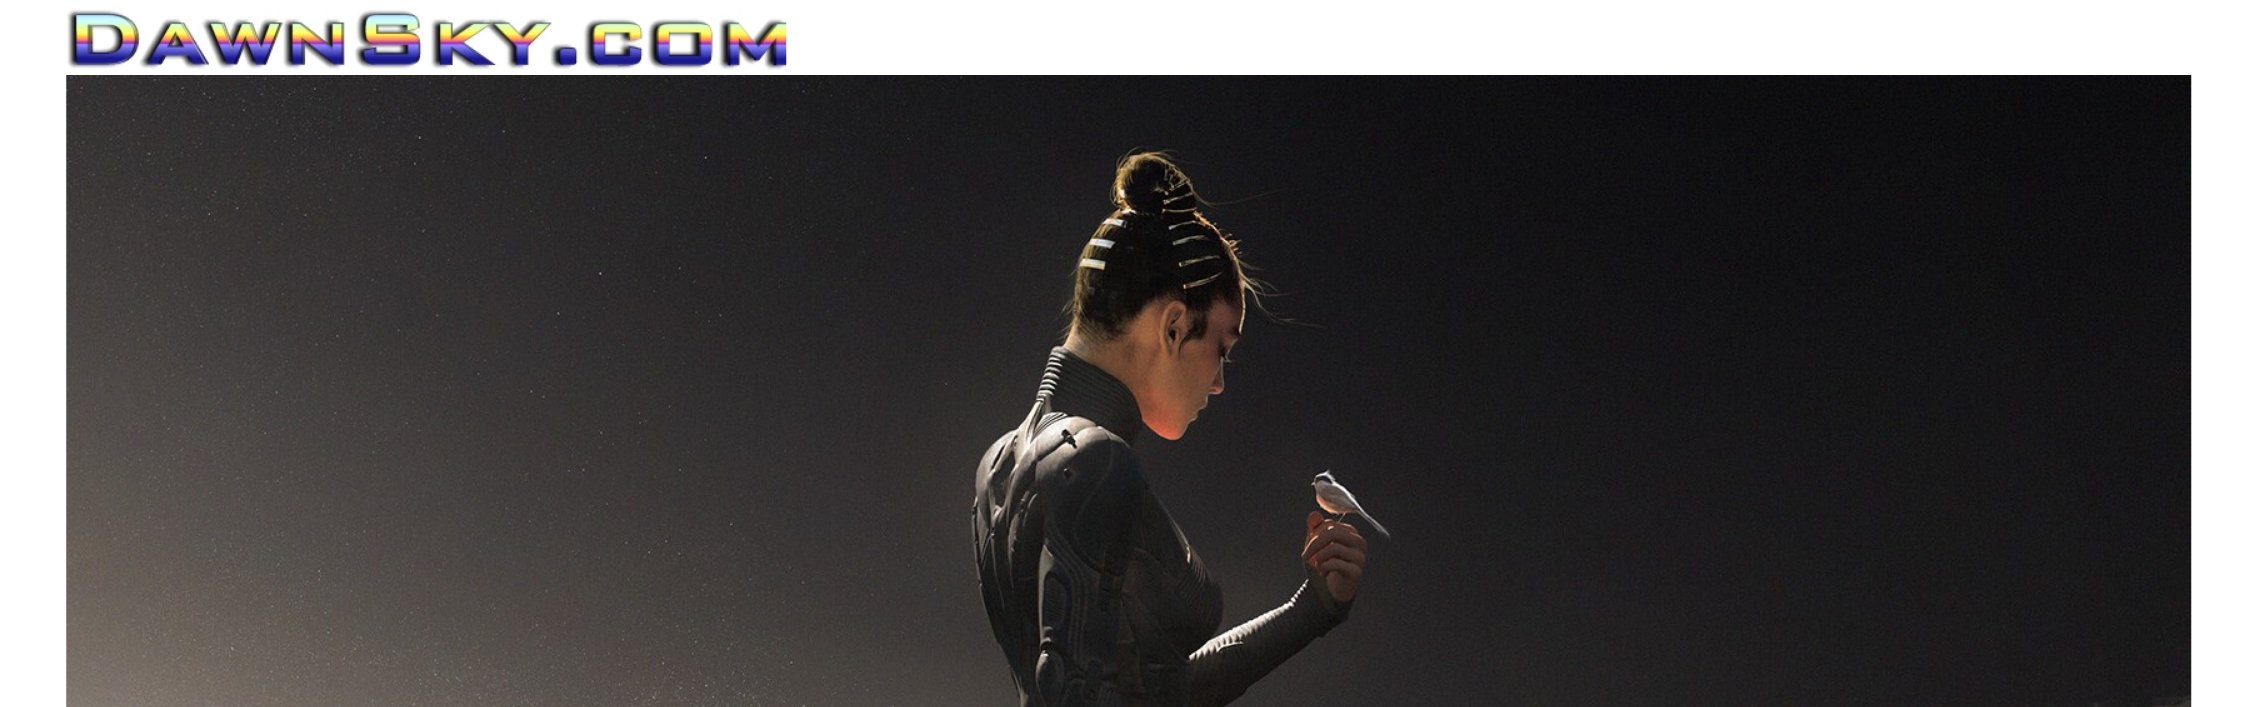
%!PS-Adobe-3.0
%%BoundingBox: 0 0 2267 707
%%LanguageLevel: 3
%%Pages: 1
%%EndComments
%%BeginProlog
/setink { dup -16 bitshift 255 div exch dup -8 bitshift 255 and 255 div exch 255 and 255 div setrgbcolor } def
/drawimage { 5 dict begin { /h /w /y /x /name } { exch def } forall
  gsave x y translate w h scale
  w h 8 [w 0 0 h 0 0] name (r) file false 3 colorimage grestore end } def
%%EndProlog
%%BeginSetup
<< /PageSize [2267 707] >> setpagedevice
%%EndSetup
%%Page: 1 1
0 707 translate 1 -1 scale
4 setmiterlimit
16#FFFFFF setink
0 0 2267 707 rectfill
(img1.raw) 67 10 720 60 drawimage
(img2.raw) 66 75 2126 632 drawimage
showpage
%%EOF
